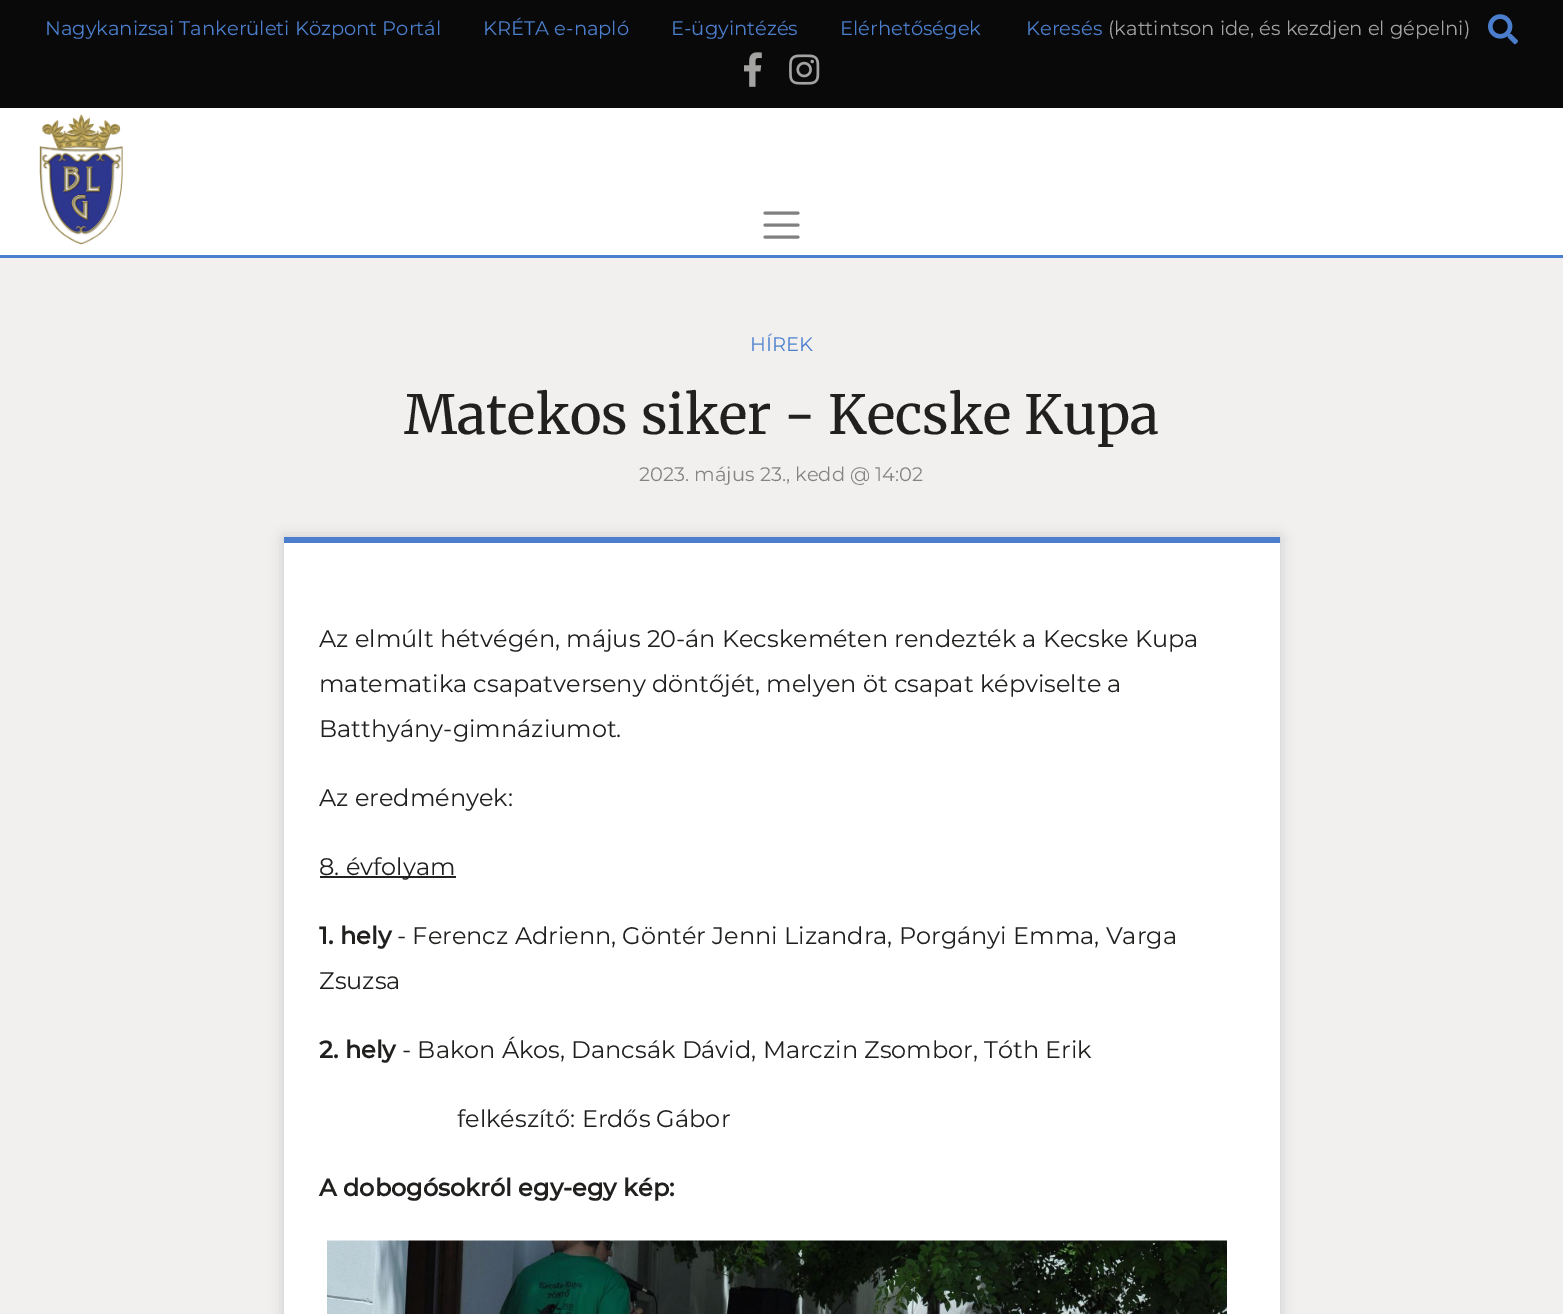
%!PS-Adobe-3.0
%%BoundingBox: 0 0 1563 1314
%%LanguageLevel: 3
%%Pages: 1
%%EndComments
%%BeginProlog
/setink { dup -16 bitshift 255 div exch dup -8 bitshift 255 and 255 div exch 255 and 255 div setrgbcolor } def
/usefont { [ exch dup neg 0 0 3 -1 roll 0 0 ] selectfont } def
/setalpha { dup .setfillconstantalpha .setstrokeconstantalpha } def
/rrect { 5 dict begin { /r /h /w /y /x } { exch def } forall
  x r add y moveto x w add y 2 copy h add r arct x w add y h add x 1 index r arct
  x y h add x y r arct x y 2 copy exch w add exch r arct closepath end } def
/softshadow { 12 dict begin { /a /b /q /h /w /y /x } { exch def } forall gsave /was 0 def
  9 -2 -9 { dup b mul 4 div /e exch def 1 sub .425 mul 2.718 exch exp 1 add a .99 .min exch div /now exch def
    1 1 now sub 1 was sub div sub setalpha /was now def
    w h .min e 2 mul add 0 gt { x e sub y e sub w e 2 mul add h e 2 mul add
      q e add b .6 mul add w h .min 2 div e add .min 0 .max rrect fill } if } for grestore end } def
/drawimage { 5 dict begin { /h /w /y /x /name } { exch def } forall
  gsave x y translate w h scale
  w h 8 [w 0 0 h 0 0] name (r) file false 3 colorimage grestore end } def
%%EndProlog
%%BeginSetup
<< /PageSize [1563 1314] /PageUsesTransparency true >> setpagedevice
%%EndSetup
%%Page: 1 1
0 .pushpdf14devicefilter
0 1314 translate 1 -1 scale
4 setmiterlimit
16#F1F0EF setink
0 0 1563 1314 rectfill
16#090909 setink
0 0 1563 108 rectfill
/Montserrat-Regular 19.5 usefont
16#4B7FCE setink
[
    [(Nagykanizsai Tankerületi Központ Portál) 45 35]
    [(KRÉTA e-napló) 483 35]
    [(E-ügyintézés) 671 35]
    [(Elérhetőségek) 840 35]
    [(Keresés) 1026 35]
] { aload pop moveto show } forall
16#A4A3A2 setink
1108 35 moveto (\(kattintson ide, és kezdjen el gépelni\)) show
(img1.raw) 1488 14 30 31 drawimage
(img2.raw) 744 52 18 35 drawimage
(img3.raw) 789 54 31 31 drawimage
16#FFFFFF setink
0 108 1563 147 rectfill
16#4B7FCE setink
0 255 1563 3 rectfill
(img4.raw) 39 114 84 131 drawimage
16#808080 setink
3 setlinewidth
1 setlinecap
765 213 moveto 798 213 lineto 765 225 moveto 798 225 lineto 765 237 moveto 798 237 lineto stroke
16#4B7FCE setink
750 351 moveto (HÍREK) show
/Merriweather-Regular 54 usefont
16#21201F setink
404 434 moveto (Matekos siker - Kecske Kupa) show
/Montserrat-Regular 19.5 usefont
16#848382 setink
639 481 moveto (2023. május 23., kedd @ 14:02) show
16#000000 setink
284 537 996 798 0 7 0.15 softshadow
16#FFFFFF setink
284 543 996 771 rectfill
16#4B7FCE setink
284 537 996 6 rectfill
/Montserrat-Regular 24 usefont
16#21201F setink
[
    [(Az elmúlt hétvégén, május 20-án Kecskeméten rendezték a Kecske Kupa) 319 647]
    [(matematika csapatverseny döntőjét, melyen öt csapat képviselte a) 319 692]
    [(Batthyány-gimnáziumot.) 319 737]
    [(Az eredmények:) 319 806]
] { aload pop moveto show } forall
16#212223 setink
320 876 136 2 rectfill
16#21201F setink
319 875 moveto (8. évfolyam) show
/Montserrat-Bold 24 usefont
319 944 moveto (1. hely) show
/Montserrat-Regular 24 usefont
397 944 moveto (- Ferencz Adrienn, Göntér Jenni Lizandra, Porgányi Emma, Varga) show
319 989 moveto (Zsuzsa) show
/Montserrat-Bold 24 usefont
319 1058 moveto (2. hely) show
/Montserrat-Regular 24 usefont
402 1058 moveto (- Bakon Ákos, Dancsák Dávid, Marczin Zsombor, Tóth Erik) show
457 1127 moveto (felkészítő: Erdős Gábor) show
/Montserrat-Bold 24 usefont
319 1196 moveto (A dobogósokról egy-egy kép:) show
(img5.raw) 327 1240 900 74 drawimage
.poppdf14devicefilter showpage
%%EOF
